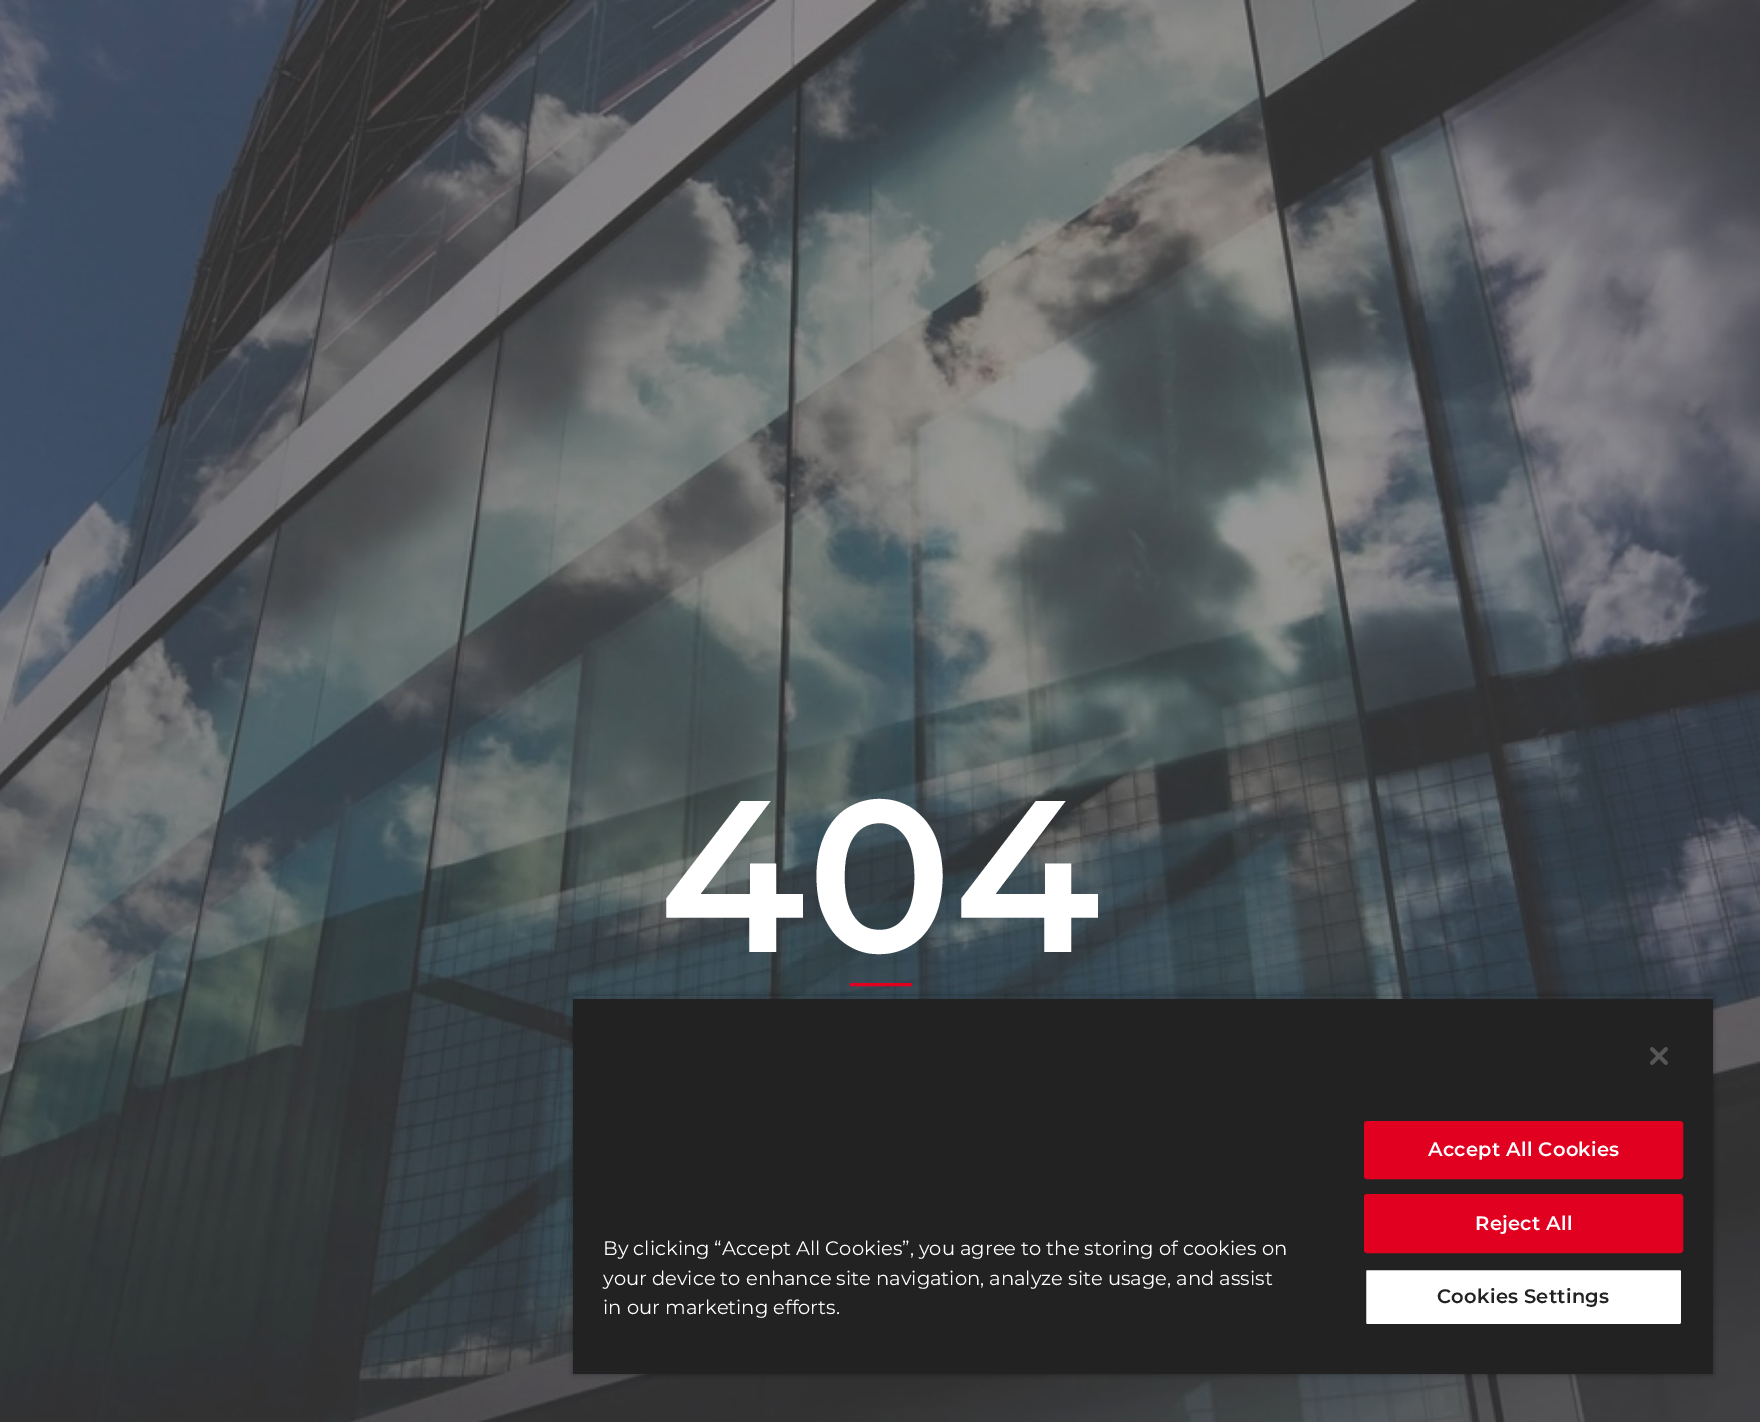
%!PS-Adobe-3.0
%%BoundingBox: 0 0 1760 1422
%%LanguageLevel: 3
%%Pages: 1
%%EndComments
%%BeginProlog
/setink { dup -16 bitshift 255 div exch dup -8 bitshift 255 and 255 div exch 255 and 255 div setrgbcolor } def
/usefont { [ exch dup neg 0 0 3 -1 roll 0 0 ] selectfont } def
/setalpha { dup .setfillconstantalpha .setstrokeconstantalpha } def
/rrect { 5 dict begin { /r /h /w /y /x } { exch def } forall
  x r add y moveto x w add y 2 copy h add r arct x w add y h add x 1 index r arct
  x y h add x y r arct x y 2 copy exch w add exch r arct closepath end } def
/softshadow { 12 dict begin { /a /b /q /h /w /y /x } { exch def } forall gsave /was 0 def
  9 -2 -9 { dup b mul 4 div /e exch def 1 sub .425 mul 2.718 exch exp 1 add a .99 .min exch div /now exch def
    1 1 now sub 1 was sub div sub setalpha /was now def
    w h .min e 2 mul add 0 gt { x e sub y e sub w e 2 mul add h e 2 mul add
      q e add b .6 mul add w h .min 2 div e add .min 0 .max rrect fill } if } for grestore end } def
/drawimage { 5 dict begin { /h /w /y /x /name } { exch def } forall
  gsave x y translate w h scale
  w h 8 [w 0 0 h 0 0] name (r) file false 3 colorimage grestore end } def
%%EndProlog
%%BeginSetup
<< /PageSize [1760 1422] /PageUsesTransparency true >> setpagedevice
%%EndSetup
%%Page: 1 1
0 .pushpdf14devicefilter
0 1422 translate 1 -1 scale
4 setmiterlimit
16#FFFFFF setink
0 0 1760 1422 rectfill
(img1.raw) 0 0 1760 1422 drawimage
/Montserrat-SemiBold 216 usefont
659 952 moveto 1.5 0 (404) ashow
/DejaVuSansMono-Regular 36 usefont
16#E20020 setink
850 997 moveto -1.5 0 (───) ashow
gsave
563 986 moveto 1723 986 lineto 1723 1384 lineto 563 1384 lineto closepath 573 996 moveto 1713 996 lineto 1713 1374 lineto 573 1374 lineto closepath eoclip newpath
16#000000 setink
573 996 1140 378 0 3 0.35 softshadow
grestore
gsave
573 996 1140 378 rectclip
16#000000 setink
573 999 1140 375 0 3 0.2 softshadow
grestore
16#222222 setink
573 999 1140 375 rectfill
(img2.raw) 1650 1047 18 18 drawimage
/Montserrat-Regular 19.5 usefont
16#FFFFFF setink
[
    [(By clicking “Accept All Cookies”, you agree to the storing of cookies on) 603 1255]
    [(your device to enhance site navigation, analyze site usage, and assist) 603 1285]
    [(in our marketing efforts.) 603 1314]
] { aload pop moveto show } forall
16#E20020 setink
1365 1122 317 56 2 rrect gsave fill grestore
2 setlinewidth
stroke
/Montserrat-SemiBold 19.5 usefont
16#FFFFFF setink
1428 1156 moveto 0.25 0 (Accept All Cookies) ashow
16#E20020 setink
1365 1195 317 57 2 rrect gsave fill grestore
stroke
16#FFFFFF setink
1475 1230 moveto 0.25 0 (Reject All) ashow
1365 1269 317 56 2 rrect gsave fill grestore
16#222222 setink
stroke
1437 1303 moveto 0.25 0 (Cookies Settings) ashow
.poppdf14devicefilter showpage
%%EOF
